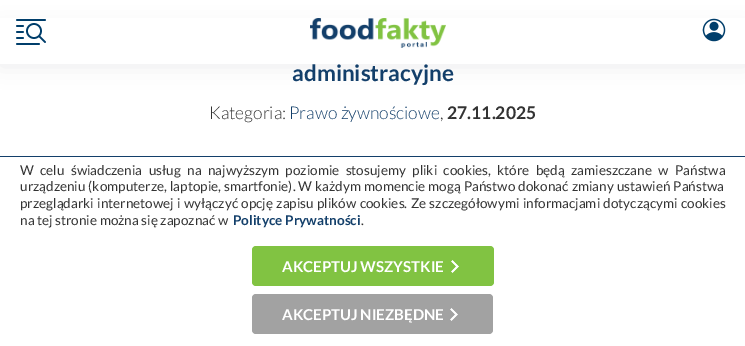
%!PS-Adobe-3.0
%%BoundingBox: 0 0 745 346
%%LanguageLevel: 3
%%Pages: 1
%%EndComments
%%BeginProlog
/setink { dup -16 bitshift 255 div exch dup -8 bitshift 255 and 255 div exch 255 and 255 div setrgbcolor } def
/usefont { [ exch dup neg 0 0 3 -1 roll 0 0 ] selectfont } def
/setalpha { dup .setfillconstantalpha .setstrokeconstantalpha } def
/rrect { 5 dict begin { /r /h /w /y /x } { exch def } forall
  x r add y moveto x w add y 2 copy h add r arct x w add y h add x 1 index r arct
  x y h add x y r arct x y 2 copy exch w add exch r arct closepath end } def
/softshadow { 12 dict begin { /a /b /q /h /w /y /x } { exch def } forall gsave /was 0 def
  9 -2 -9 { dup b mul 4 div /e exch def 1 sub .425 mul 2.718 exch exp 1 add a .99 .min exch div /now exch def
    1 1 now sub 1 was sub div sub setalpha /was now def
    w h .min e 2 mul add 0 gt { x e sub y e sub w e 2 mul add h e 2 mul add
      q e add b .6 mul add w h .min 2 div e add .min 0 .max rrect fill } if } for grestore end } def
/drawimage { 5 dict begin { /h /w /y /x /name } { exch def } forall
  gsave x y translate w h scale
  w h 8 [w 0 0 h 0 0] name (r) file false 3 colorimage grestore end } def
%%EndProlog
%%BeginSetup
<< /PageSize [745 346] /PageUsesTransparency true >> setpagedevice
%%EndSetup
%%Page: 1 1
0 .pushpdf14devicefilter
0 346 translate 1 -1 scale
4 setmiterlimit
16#FFFFFF setink
0 0 745 346 rectfill
16#42445A setink
0 29 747 37 0 10.5 0.1 softshadow
16#FFFFFF setink
0 18 745 46 rectfill
(img1.raw) 16 19 30 26 drawimage
(img2.raw) 310 18 136 30 drawimage
(img3.raw) 702 18 24 24 drawimage
/Lato-Bold 22.5 usefont
16#133F6A setink
292 81 moveto (administracyjne) show
/Lato-Light 17.5 usefont
16#333333 setink
209 119 moveto (Kategoria:) show
16#133F6A setink
289 119 moveto (Prawo żywnościowe) show
16#333333 setink
440 119 moveto (,) show
/Lato-Bold 17.5 usefont
447 119 moveto (27.11.2025) show
16#133F6A setink
0 156 745 1 rectfill
/Lato-Regular 13.5 usefont
16#333333 setink
20 175 moveto 3.75 0 32 (W celu świadczenia usług na najwyższym poziomie stosujemy pliki cookies, które będą zamieszczane w Państwa) widthshow
20 191 moveto 0.5 0 32 (urządzeniu \(komputerze, laptopie, smartfonie\). W każdym momencie mogą Państwo dokonać zmiany ustawień Państwa) widthshow
20 208 moveto 0.75 0 32 (przeglądarki internetowej i wyłączyć opcję zapisu plików cookies. Ze szczegółowymi informacjami dotyczącymi cookies) widthshow
20 225 moveto (na tej stronie można się zapoznać w) show
/Lato-Bold 13.5 usefont
16#133F6A setink
233 225 moveto (Polityce Prywatności) show
/Lato-Regular 13.5 usefont
16#333333 setink
361 225 moveto (.) show
16#81C342 setink
252 246 242 40 4 rrect fill
(img4.raw) 451 260 8 13 drawimage
/Lato-Bold 15 usefont
16#FFFFFF setink
282 272 moveto (AKCEPTUJ WSZYSTKIE) show
16#A2A2A2 setink
252 294 241 40 4 rrect fill
(img5.raw) 450 308 8 13 drawimage
16#FFFFFF setink
282 320 moveto (AKCEPTUJ NIEZBĘDNE) show
.poppdf14devicefilter showpage
%%EOF
